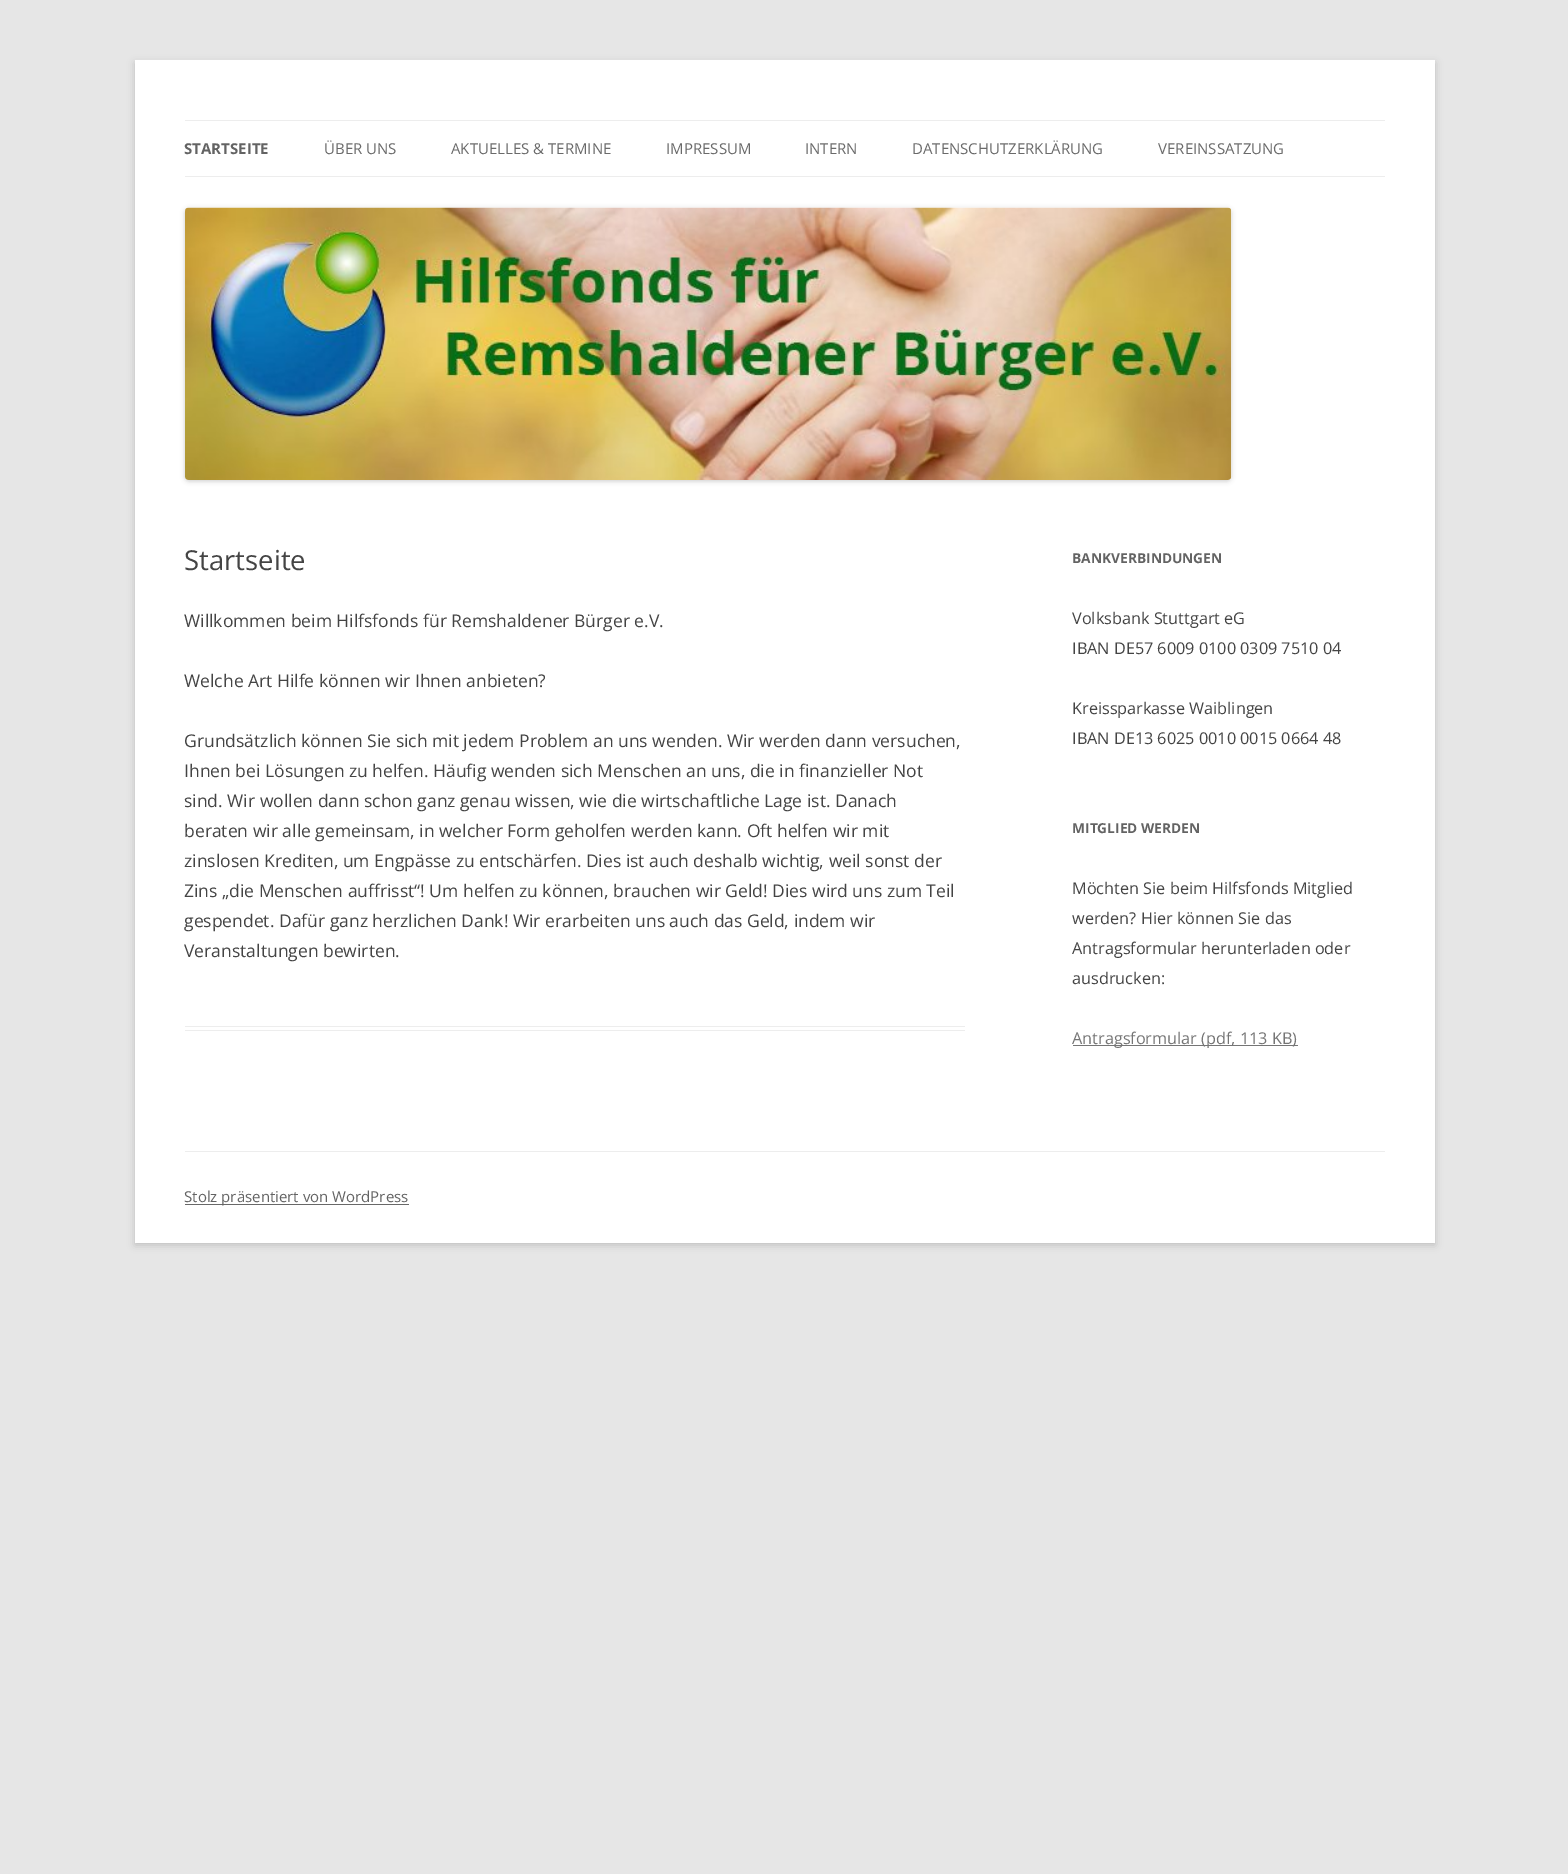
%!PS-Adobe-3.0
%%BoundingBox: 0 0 1568 1874
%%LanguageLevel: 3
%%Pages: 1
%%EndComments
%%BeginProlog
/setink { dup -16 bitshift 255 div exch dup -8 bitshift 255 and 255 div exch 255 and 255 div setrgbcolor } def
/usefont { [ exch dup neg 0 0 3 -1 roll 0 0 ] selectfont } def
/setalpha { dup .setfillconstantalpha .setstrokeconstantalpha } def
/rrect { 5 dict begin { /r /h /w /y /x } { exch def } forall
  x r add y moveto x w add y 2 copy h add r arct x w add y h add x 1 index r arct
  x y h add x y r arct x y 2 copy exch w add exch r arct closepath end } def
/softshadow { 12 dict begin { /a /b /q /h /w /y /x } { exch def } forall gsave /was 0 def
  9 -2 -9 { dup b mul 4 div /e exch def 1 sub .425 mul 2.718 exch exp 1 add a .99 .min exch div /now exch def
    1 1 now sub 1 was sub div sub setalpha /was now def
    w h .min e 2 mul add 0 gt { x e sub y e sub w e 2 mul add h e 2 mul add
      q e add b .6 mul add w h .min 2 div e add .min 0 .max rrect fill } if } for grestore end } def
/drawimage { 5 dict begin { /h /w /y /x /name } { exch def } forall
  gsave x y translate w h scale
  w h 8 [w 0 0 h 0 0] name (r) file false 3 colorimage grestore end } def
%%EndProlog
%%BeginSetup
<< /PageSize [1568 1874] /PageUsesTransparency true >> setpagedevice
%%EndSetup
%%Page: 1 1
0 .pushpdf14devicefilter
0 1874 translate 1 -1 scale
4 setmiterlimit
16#E6E6E6 setink
0 0 1568 1874 rectfill
16#646464 setink
135 63 1300 1182 0 4 0.3 softshadow
[
    [135 60 1300 1183 16#FFFFFF]
    [185 120 1200 1 16#EDEDED]
    [185 176 1200 1 16#EDEDED]
] { aload pop setink rectfill } forall
/OpenSans-Bold 15 usefont
16#636363 setink
184 154 moveto (STARTSEITE) show
/OpenSans-Regular 15 usefont
16#6A6A6A setink
[
    [(ÜBER UNS) 324 154]
    [(AKTUELLES & TERMINE) 451 154]
    [(IMPRESSUM) 666 154]
    [(INTERN) 805 154]
    [(DATENSCHUTZERKLÄRUNG) 912 154]
    [(VEREINSSATZUNG) 1158 154]
] { aload pop moveto show } forall
16#000000 setink
185 209 1046 272 4 2.5 0.2 softshadow
(img1.raw) 185 207 1047 273 drawimage
16#EDEDED setink
185 1026 780 1 rectfill
185 1030 780 1 rectfill
/OpenSans-Regular 27.5 usefont
16#444444 setink
184 570 moveto (Startseite) show
/OpenSans-Regular 17.5 usefont
[
    [(Willkommen beim Hilfsfonds für Remshaldener Bürger e.V.) 184 627]
    [(Welche Art Hilfe können wir Ihnen anbieten?) 184 687]
    [(Grundsätzlich können Sie sich mit jedem Problem an uns wenden. Wir werden dann versuchen,) 184 747]
    [(Ihnen bei Lösungen zu helfen. Häufig wenden sich Menschen an uns, die in finanzieller Not) 184 777]
    [(sind. Wir wollen dann schon ganz genau wissen, wie die wirtschaftliche Lage ist. Danach) 184 807]
    [(beraten wir alle gemeinsam, in welcher Form geholfen werden kann. Oft helfen wir mit) 184 837]
    [(zinslosen Krediten, um Engpässe zu entschärfen. Dies ist auch deshalb wichtig, weil sonst der) 184 867]
    [(Zins „die Menschen auffrisst“! Um helfen zu können, brauchen wir Geld! Dies wird uns zum Teil) 184 897]
    [(gespendet. Dafür ganz herzlichen Dank! Wir erarbeiten uns auch das Geld, indem wir) 184 927]
    [(Veranstaltungen bewirten.) 184 957]
] { aload pop moveto show } forall
/OpenSans-Bold 13.75 usefont
16#636363 setink
1072 563 moveto (BANKVERBINDUNGEN) show
/OpenSans-Regular 16.25 usefont
16#444444 setink
[
    [(Volksbank Stuttgart eG) 1072 624]
    [(IBAN DE57 6009 0100 0309 7510 04) 1072 654]
    [(Kreissparkasse Waiblingen) 1072 714]
    [(IBAN DE13 6025 0010 0015 0664 48) 1072 744]
] { aload pop moveto show } forall
/OpenSans-Bold 13.75 usefont
16#636363 setink
1072 833 moveto (MITGLIED WERDEN) show
/OpenSans-Regular 16.25 usefont
16#444444 setink
[
    [(Möchten Sie beim Hilfsfonds Mitglied) 1072 894]
    [(werden? Hier können Sie das) 1072 924]
    [(Antragsformular herunterladen oder) 1072 954]
    [(ausdrucken:) 1072 984]
] { aload pop moveto show } forall
16#757575 setink
1073 1045 225 1 rectfill
1072 1044 moveto (Antragsformular \(pdf, 113 KB\)) show
16#EDEDED setink
185 1151 1200 1 rectfill
16#686868 setink
185 1204 224 1 rectfill
/OpenSans-Regular 15 usefont
16#636363 setink
184 1202 moveto (Stolz präsentiert von WordPress) show
.poppdf14devicefilter showpage
%%EOF
